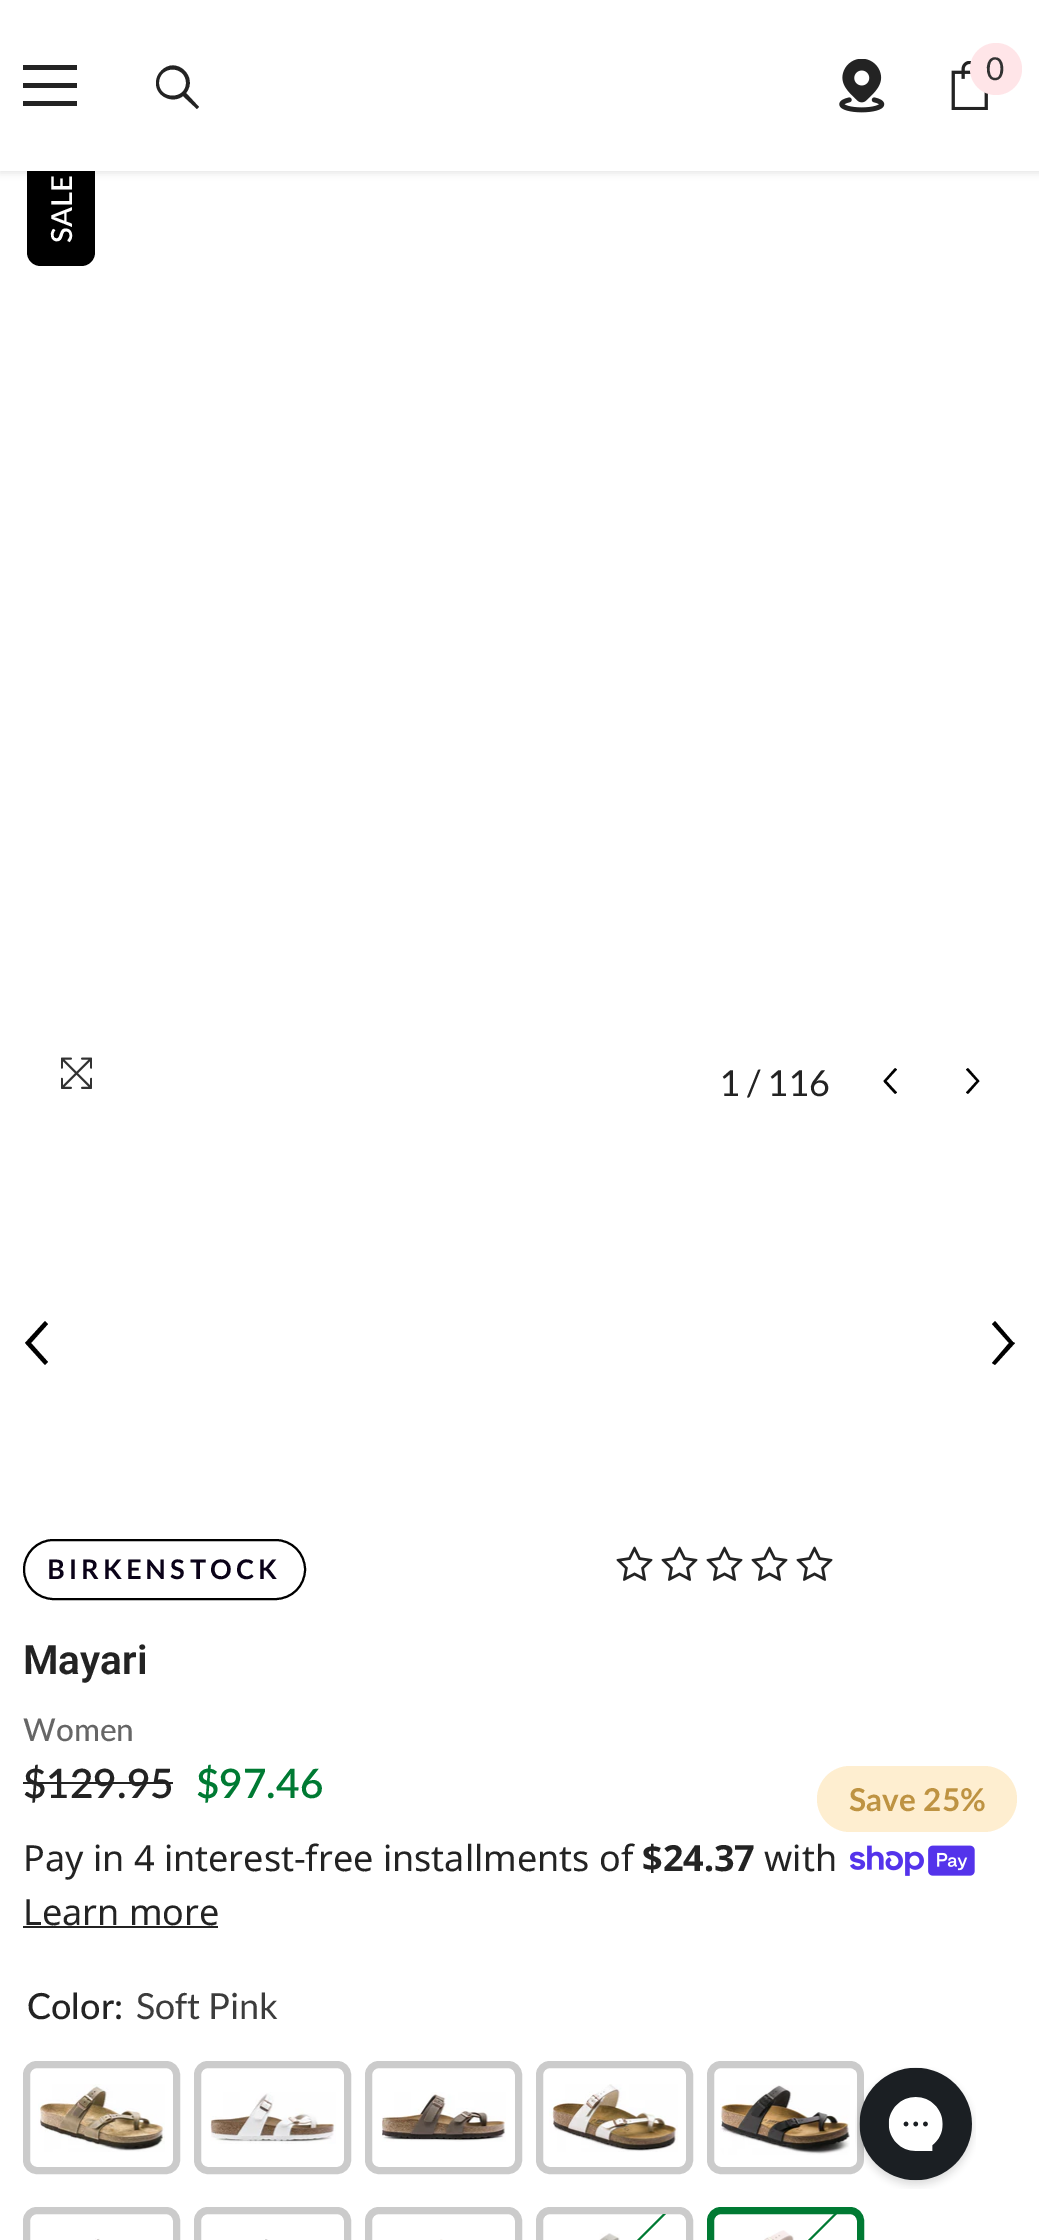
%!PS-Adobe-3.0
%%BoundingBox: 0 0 1039 2240
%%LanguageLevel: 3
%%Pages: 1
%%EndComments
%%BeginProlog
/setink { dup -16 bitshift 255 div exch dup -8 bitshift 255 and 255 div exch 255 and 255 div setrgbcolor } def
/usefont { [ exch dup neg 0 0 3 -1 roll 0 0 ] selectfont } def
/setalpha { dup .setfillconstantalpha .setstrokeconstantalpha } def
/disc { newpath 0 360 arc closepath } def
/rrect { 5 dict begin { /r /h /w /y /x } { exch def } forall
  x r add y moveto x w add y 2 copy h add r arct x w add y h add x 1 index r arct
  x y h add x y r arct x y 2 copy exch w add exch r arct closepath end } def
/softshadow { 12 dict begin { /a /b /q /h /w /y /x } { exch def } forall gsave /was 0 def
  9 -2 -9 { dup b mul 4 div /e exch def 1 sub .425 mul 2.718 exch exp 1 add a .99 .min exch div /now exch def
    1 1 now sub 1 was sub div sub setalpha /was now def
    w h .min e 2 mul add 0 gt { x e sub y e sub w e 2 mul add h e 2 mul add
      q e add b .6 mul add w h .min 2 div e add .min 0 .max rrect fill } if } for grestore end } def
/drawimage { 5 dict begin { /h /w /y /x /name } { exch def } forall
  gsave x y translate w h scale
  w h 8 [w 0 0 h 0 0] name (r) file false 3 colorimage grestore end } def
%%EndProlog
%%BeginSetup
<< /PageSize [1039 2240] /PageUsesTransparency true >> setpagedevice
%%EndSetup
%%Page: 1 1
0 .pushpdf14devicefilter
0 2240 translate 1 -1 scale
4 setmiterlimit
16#FFFFFF setink
0 0 1039 2240 rectfill
16#000000 setink
27 252 moveto 27 166 lineto 27 159 33 153 41 153 curveto 81 153 lineto 89 153 95 159 95 166 curveto 95 252 lineto 95 260 89 266 81 266 curveto 41 266 lineto 33 266 27 260 27 252 curveto closepath fill
0 2 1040 171 0 3.5 0.1 softshadow
[
    [0 0 1039 171 16#FFFFFF]
    [23 83 54 5 16#232323]
    [23 65 54 5 16#232323]
    [23 101 54 5 16#232323]
] { aload pop setink rectfill } forall
156 83 moveto 156 97 173 104 183 96 curveto 197 109 lineto 199 107 lineto 186 93 lineto 199 77 176 55 161 71 curveto 158 74 156 78 156 83 curveto closepath 159 83 moveto 159 65 186 65 186 83 curveto 186 100 159 100 159 83 curveto closepath fill
(img1.raw) 839 59 46 54 drawimage
(img2.raw) 951 61 37 49 drawimage
16#FFE5E8 setink
996 69 26 disc fill
/Lato-Regular 31.5 usefont
16#323232 setink
986 80 moveto (0) show
/Lato-SemiBold 29 usefont
16#FFFFFF setink
gsave 72 243 translate -90 rotate 0 0 moveto (SALE) show grestore
(img3.raw) 61 1057 31 32 drawimage
/Lato-Regular 36 usefont
16#232323 setink
719 1096 moveto (1 / 116) show
16#000000 setink
895 1094 moveto 897 1092.5 lineto 886.5 1081 lineto 897 1069.5 lineto 895 1068 lineto 883.5 1081 lineto 884 1082 lineto closepath fill
968 1068 moveto 966 1069.5 lineto 976.5 1081 lineto 966 1092.5 lineto 968 1094 lineto 979.5 1081 lineto 979 1080.5 lineto closepath fill
45 1365 moveto 48 1362 lineto 31 1343 lineto 48 1324 lineto 45 1321 lineto 25 1343 lineto 26 1344 lineto closepath fill
995 1321 moveto 992 1324 lineto 1009 1343 lineto 992 1363 lineto 995 1365 lineto 1015 1343 lineto 1013 1342 lineto closepath fill
2 setlinewidth
24 1540 281 59 29.5 rrect stroke
/Lato-Bold 27 usefont
16#0A0218 setink
47 1579 moveto 4.25 0 (BIRKENSTOCK) ashow
(img4.raw) 616 1546 37 35 drawimage
(img4.raw) 661 1546 37 35 drawimage
(img4.raw) 706 1546 37 35 drawimage
(img4.raw) 751 1546 37 35 drawimage
(img4.raw) 796 1546 37 35 drawimage
/Roboto-SemiBold 40.5 usefont
16#232323 setink
23 1674 moveto (Mayari) show
/Lato-Medium 31.5 usefont
16#666666 setink
23 1741 moveto (Women) show
/Lato-SemiBold 40.5 usefont
16#232323 setink
23 1798 moveto ($129.95) show
23 1782 150 2 rectfill
16#007A33 setink
196 1798 moveto ($97.46) show
16#FEEED0 setink
817 1766 200 66 33 rrect fill
/Lato-Bold 31.5 usefont
16#BE9342 setink
849 1811 moveto (Save 25%) show
/NotoSans-Regular 36 usefont
16#232323 setink
23 1871 moveto (Pay in 4 interest-free installments of) show
/NotoSans-Bold 36 usefont
642 1871 moveto ($24.37) show
/NotoSans-Regular 36 usefont
764 1871 moveto (with) show
(img5.raw) 850 1845 125 31 drawimage
23 1925 moveto (Learn more) show
23 1926 195 2 rectfill
/Lato-Medium 36 usefont
27 2019 moveto (Color:) show
/Lato-Regular 36 usefont
16#3C3C3C setink
136 2019 moveto (Soft Pink) show
16#CBCBCB setink
7 setlinewidth
26.5 2064.5 150 106 10.5 rrect stroke
(img6.raw) 38 2084 127 68 drawimage
197.5 2064.5 150 106 10.5 rrect stroke
(img7.raw) 210 2092 126 52 drawimage
368.5 2064.5 150 106 10.5 rrect stroke
(img8.raw) 382 2092 124 50 drawimage
539.5 2064.5 150 106 10.5 rrect stroke
(img9.raw) 549 2084 129 68 drawimage
710.5 2064.5 150 106 10.5 rrect stroke
(img10.raw) 720 2085 130 70 drawimage
26.5 2210.5 150 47 10.5 rrect stroke
(img11.raw) 95 2238 5 2 drawimage
197.5 2210.5 150 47 10.5 rrect stroke
(img12.raw) 265 2239 3 1 drawimage
368.5 2210.5 150 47 10.5 rrect stroke
(img13.raw) 440 2239 3 1 drawimage
539.5 2210.5 150 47 10.5 rrect stroke
(img14.raw) 599 2233 21 7 drawimage
16#007A33 setink
666 2214 moveto 567 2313 lineto 564 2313 lineto 663 2214 lineto closepath fill
710.5 2210.5 150 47 10.5 rrect stroke
(img15.raw) 764 2230 30 10 drawimage
837 2214 moveto 738 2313 lineto 735 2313 lineto 834 2214 lineto closepath fill
(img16.raw) 855 2067 121 122 drawimage
.poppdf14devicefilter showpage
%%EOF
